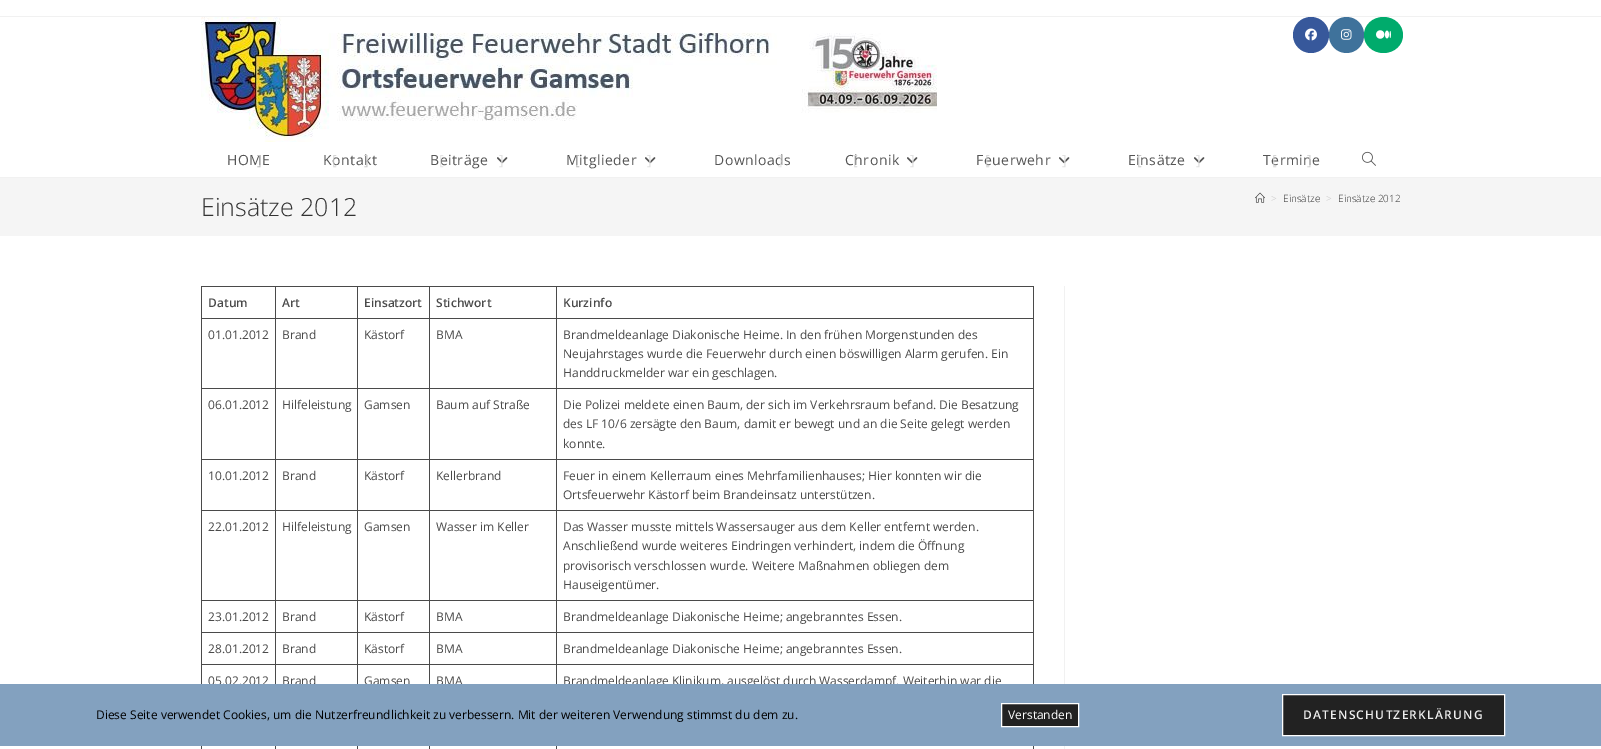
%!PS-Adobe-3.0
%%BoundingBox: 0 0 1601 749
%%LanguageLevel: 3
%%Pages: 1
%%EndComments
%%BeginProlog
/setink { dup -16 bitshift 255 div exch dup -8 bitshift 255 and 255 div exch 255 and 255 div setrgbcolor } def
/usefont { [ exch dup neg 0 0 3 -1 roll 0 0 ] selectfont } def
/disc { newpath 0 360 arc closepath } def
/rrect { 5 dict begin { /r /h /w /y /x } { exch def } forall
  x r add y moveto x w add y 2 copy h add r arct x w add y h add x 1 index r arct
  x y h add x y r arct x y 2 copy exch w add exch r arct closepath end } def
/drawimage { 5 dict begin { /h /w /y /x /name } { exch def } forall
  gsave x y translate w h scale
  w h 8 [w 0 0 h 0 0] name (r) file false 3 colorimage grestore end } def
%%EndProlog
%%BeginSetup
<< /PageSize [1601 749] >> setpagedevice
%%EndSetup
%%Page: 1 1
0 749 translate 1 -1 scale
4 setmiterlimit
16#FFFFFF setink
0 0 1601 749 rectfill
16#F1F1F1 setink
0 16 1601 1 rectfill
0 177 1601 1 rectfill
(img1.raw) 201 17 736 125 drawimage
16#37589B setink
1311 35 18 disc fill
(img2.raw) 1305 28 12 13 drawimage
16#3F729B setink
1329 17 35 36 17.5 rrect fill
(img3.raw) 1341 29 11 11 drawimage
16#00AB6C setink
1383.5 17 moveto 1394.5 17 1403 25 1403 35 curveto 1403 45 1394.5 53 1383.5 53 curveto 1372.5 53 1364 45 1364 35 curveto 1364 25 1372.5 17 1383.5 17 curveto closepath fill
(img4.raw) 1376 30 15 9 drawimage
/OpenSans-Regular 14 usefont
16#555555 setink
227 165 moveto 0.5 0 (HOME) ashow
16#BEBEBE setink
257 165 moveto 0.5 0 (]) ashow
16#555555 setink
323 165 moveto 0.5 0 (Kontakt) ashow
16#D5D5D5 setink
332 165 moveto 0.5 0 ([) ashow
16#CECECE setink
364 165 moveto 0.5 0 (]) ashow
16#555555 setink
430 165 moveto 0.5 0 (Beiträge) ashow
16#E2E2E2 setink
439 165 moveto 0.5 0 ([) ashow
(img5.raw) 497 157 11 7 drawimage
499 165 moveto 0.5 0 (]) ashow
16#555555 setink
566 165 moveto 0.5 0 (Mitglieder) ashow
16#B8B8B8 setink
575 165 moveto 0.5 0 ([) ashow
(img5.raw) 645 157 11 7 drawimage
16#E2E2E2 setink
647 165 moveto 0.5 0 (]) ashow
16#555555 setink
714 165 moveto 0.5 0 (Downloads) ashow
16#E8E8E8 setink
778 165 moveto 0.5 0 (]) ashow
16#555555 setink
845 165 moveto 0.5 0 (Chronik) ashow
16#D5D5D5 setink
853 165 moveto 0.5 0 ([) ashow
(img5.raw) 907 157 11 7 drawimage
16#E2E2E2 setink
910 165 moveto 0.5 0 (]) ashow
16#555555 setink
976 165 moveto 0.5 0 (Feuerwehr) ashow
16#D5D5D5 setink
985 165 moveto 0.5 0 ([) ashow
(img5.raw) 1059 157 11 7 drawimage
16#E2E2E2 setink
1062 165 moveto 0.5 0 (]) ashow
16#555555 setink
1128 165 moveto 0.5 0 (Einsätze) ashow
16#C6C6C6 setink
1137 165 moveto 0.5 0 ([) ashow
(img5.raw) 1194 157 11 7 drawimage
16#E2E2E2 setink
1196 165 moveto 0.5 0 (]) ashow
16#555555 setink
1263 165 moveto 0.5 0 (Termine) ashow
16#D5D5D5 setink
1272 165 moveto 0.5 0 ([) ashow
1307 165 moveto 0.5 0 (]) ashow
(img6.raw) 1362 151 14 15 drawimage
16#F5F5F5 setink
0 178 1601 58 rectfill
/OpenSans-Light 25 usefont
16#333333 setink
201 216 moveto (Einsätze 2012) show
(img7.raw) 1255 192 10 11 drawimage
/OpenSans-Light 10 usefont
16#C6C6C6 setink
1271 202 moveto (>) show
16#333333 setink
1283 202 moveto (Einsätze) show
16#C6C6C6 setink
1326 202 moveto (>) show
16#333333 setink
1338 202 moveto (Einsätze 2012) show
[
    [1064 286 1 463 16#F1F1F1]
    [556 286 478 1 16#4A4A4A]
    [556 318 478 1 16#4A4A4A]
    [556 388 478 1 16#4A4A4A]
    [556 459 478 1 16#4A4A4A]
    [556 510 478 1 16#4A4A4A]
    [556 600 478 1 16#4A4A4A]
    [556 632 478 1 16#4A4A4A]
    [556 664 478 1 16#4A4A4A]
    [556 664 1 85 16#4A4A4A]
    [429 664 128 1 16#4A4A4A]
    [556 632 1 33 16#4A4A4A]
    [429 632 128 1 16#4A4A4A]
    [556 600 1 33 16#4A4A4A]
    [429 600 128 1 16#4A4A4A]
    [556 510 1 91 16#4A4A4A]
    [429 510 128 1 16#4A4A4A]
    [556 459 1 52 16#4A4A4A]
    [429 459 128 1 16#4A4A4A]
    [556 388 1 72 16#4A4A4A]
    [429 388 128 1 16#4A4A4A]
    [556 318 1 71 16#4A4A4A]
    [429 318 128 1 16#4A4A4A]
    [556 286 1 33 16#4A4A4A]
    [429 286 128 1 16#4A4A4A]
    [429 664 1 85 16#4A4A4A]
    [357 664 73 1 16#4A4A4A]
    [429 632 1 33 16#4A4A4A]
    [357 632 73 1 16#4A4A4A]
    [429 600 1 33 16#4A4A4A]
    [357 600 73 1 16#4A4A4A]
    [429 510 1 91 16#4A4A4A]
    [357 510 73 1 16#4A4A4A]
    [429 459 1 52 16#4A4A4A]
    [357 459 73 1 16#4A4A4A]
    [429 388 1 72 16#4A4A4A]
    [357 388 73 1 16#4A4A4A]
    [429 318 1 71 16#4A4A4A]
    [357 318 73 1 16#4A4A4A]
    [429 286 1 33 16#4A4A4A]
    [357 286 73 1 16#4A4A4A]
    [357 664 1 85 16#4A4A4A]
    [275 664 83 1 16#4A4A4A]
    [357 632 1 33 16#4A4A4A]
    [275 632 83 1 16#4A4A4A]
    [357 600 1 33 16#4A4A4A]
    [275 600 83 1 16#4A4A4A]
    [357 510 1 91 16#4A4A4A]
    [275 510 83 1 16#4A4A4A]
    [357 459 1 52 16#4A4A4A]
    [275 459 83 1 16#4A4A4A]
    [357 388 1 72 16#4A4A4A]
    [275 388 83 1 16#4A4A4A]
    [357 318 1 71 16#4A4A4A]
    [275 318 83 1 16#4A4A4A]
    [357 286 1 33 16#4A4A4A]
    [275 286 83 1 16#4A4A4A]
    [275 664 1 85 16#4A4A4A]
    [201 664 75 1 16#4A4A4A]
    [275 632 1 33 16#4A4A4A]
    [201 632 75 1 16#4A4A4A]
    [275 600 1 33 16#4A4A4A]
    [201 600 75 1 16#4A4A4A]
    [275 510 1 91 16#4A4A4A]
    [201 510 75 1 16#4A4A4A]
    [275 459 1 52 16#4A4A4A]
    [201 459 75 1 16#4A4A4A]
    [275 388 1 72 16#4A4A4A]
    [201 388 75 1 16#4A4A4A]
    [275 318 1 71 16#4A4A4A]
    [201 318 75 1 16#4A4A4A]
    [275 286 1 33 16#4A4A4A]
    [201 286 75 1 16#4A4A4A]
    [201 664 1 85 16#4A4A4A]
    [201 632 1 33 16#4A4A4A]
    [201 600 1 33 16#4A4A4A]
    [201 510 1 91 16#4A4A4A]
    [201 459 1 52 16#4A4A4A]
    [201 388 1 72 16#4A4A4A]
    [201 318 1 71 16#4A4A4A]
    [201 286 1 33 16#4A4A4A]
] { aload pop setink rectfill } forall
/OpenSans-SemiBold 12 usefont
[
    [(Datum) 208 307]
    [(Art) 282 307]
    [(Einsatzort) 364 307]
    [(Stichwort) 436 307]
] { aload pop moveto show } forall
[
    [1033 664 1 85 16#4A4A4A]
    [1033 632 1 33 16#4A4A4A]
    [1033 600 1 33 16#4A4A4A]
    [1033 510 1 91 16#4A4A4A]
    [1033 459 1 52 16#4A4A4A]
    [1033 388 1 72 16#4A4A4A]
    [1033 318 1 71 16#4A4A4A]
    [1033 286 1 33 16#4A4A4A]
] { aload pop setink rectfill } forall
563 307 moveto (Kurzinfo) show
/OpenSans-Regular 12 usefont
[
    [(01.01.2012) 208 339]
    [(Brand) 282 339]
    [(Kästorf) 364 339]
    [(BMA) 436 339]
    [(Brandmeldeanlage Diakonische Heime. In den frühen Morgenstunden des) 563 339]
    [(Neujahrstages wurde die Feuerwehr durch einen böswilligen Alarm gerufen. Ein) 563 358]
    [(Handdruckmelder war ein geschlagen.) 563 377]
    [(06.01.2012) 208 409]
    [(Hilfeleistung) 282 409]
    [(Gamsen) 364 409]
    [(Baum auf Straße) 436 409]
    [(Die Polizei meldete einen Baum, der sich im Verkehrsraum befand. Die Besatzung) 563 409]
    [(des LF 10/6 zersägte den Baum, damit er bewegt und an die Seite gelegt werden) 563 428]
    [(konnte.) 563 448]
    [(10.01.2012) 208 480]
    [(Brand) 282 480]
    [(Kästorf) 364 480]
    [(Kellerbrand) 436 480]
    [(Feuer in einem Kellerraum eines Mehrfamilienhauses; Hier konnten wir die) 563 480]
    [(Ortsfeuerwehr Kästorf beim Brandeinsatz unterstützen.) 563 499]
    [(22.01.2012) 208 531]
    [(Hilfeleistung) 282 531]
    [(Gamsen) 364 531]
    [(Wasser im Keller) 436 531]
    [(Das Wasser musste mittels Wassersauger aus dem Keller entfernt werden.) 563 531]
    [(Anschließend wurde weiteres Eindringen verhindert, indem die Öffnung) 563 550]
    [(provisorisch verschlossen wurde. Weitere Maßnahmen obliegen dem) 563 570]
    [(Hauseigentümer.) 563 589]
    [(23.01.2012) 208 621]
    [(Brand) 282 621]
    [(Kästorf) 364 621]
    [(BMA) 436 621]
    [(Brandmeldeanlage Diakonische Heime; angebranntes Essen.) 563 621]
    [(28.01.2012) 208 653]
    [(Brand) 282 653]
    [(Kästorf) 364 653]
    [(BMA) 436 653]
    [(Brandmeldeanlage Diakonische Heime; angebranntes Essen.) 563 653]
    [(05.02.2012) 208 685]
    [(Brand) 282 685]
    [(Gamsen) 364 685]
    [(BMA) 436 685]
    [(Brandmeldeanlage Klinikum, ausgelöst durch Wasserdampf. Weiterhin war die) 563 685]
] { aload pop moveto show } forall
16#83A1BF setink
0 684 1601 62 rectfill
16#000000 setink
96 719 moveto (Diese Seite verwendet Cookies, um die Nutzerfreundlichkeit zu verbessern. Mit der weiteren Verwendung stimmst du dem zu.) show
16#222222 setink
1001.5 703.5 moveto 1078.5 703.5 lineto 1078.5 726.5 lineto 1001.5 726.5 lineto closepath gsave fill grestore
16#FFFFFF setink
stroke
1008 719 moveto (Verstanden) show
16#222222 setink
1282.5 694.5 moveto 1504.5 694.5 lineto 1504.5 735.5 lineto 1282.5 735.5 lineto closepath gsave fill grestore
16#FFFFFF setink
stroke
/OpenSans-SemiBold 12 usefont
16#EFEFEF setink
1303 719 moveto 1.2 0 (DATENSCHUTZERKLÄRUNG) ashow
showpage
%%EOF
